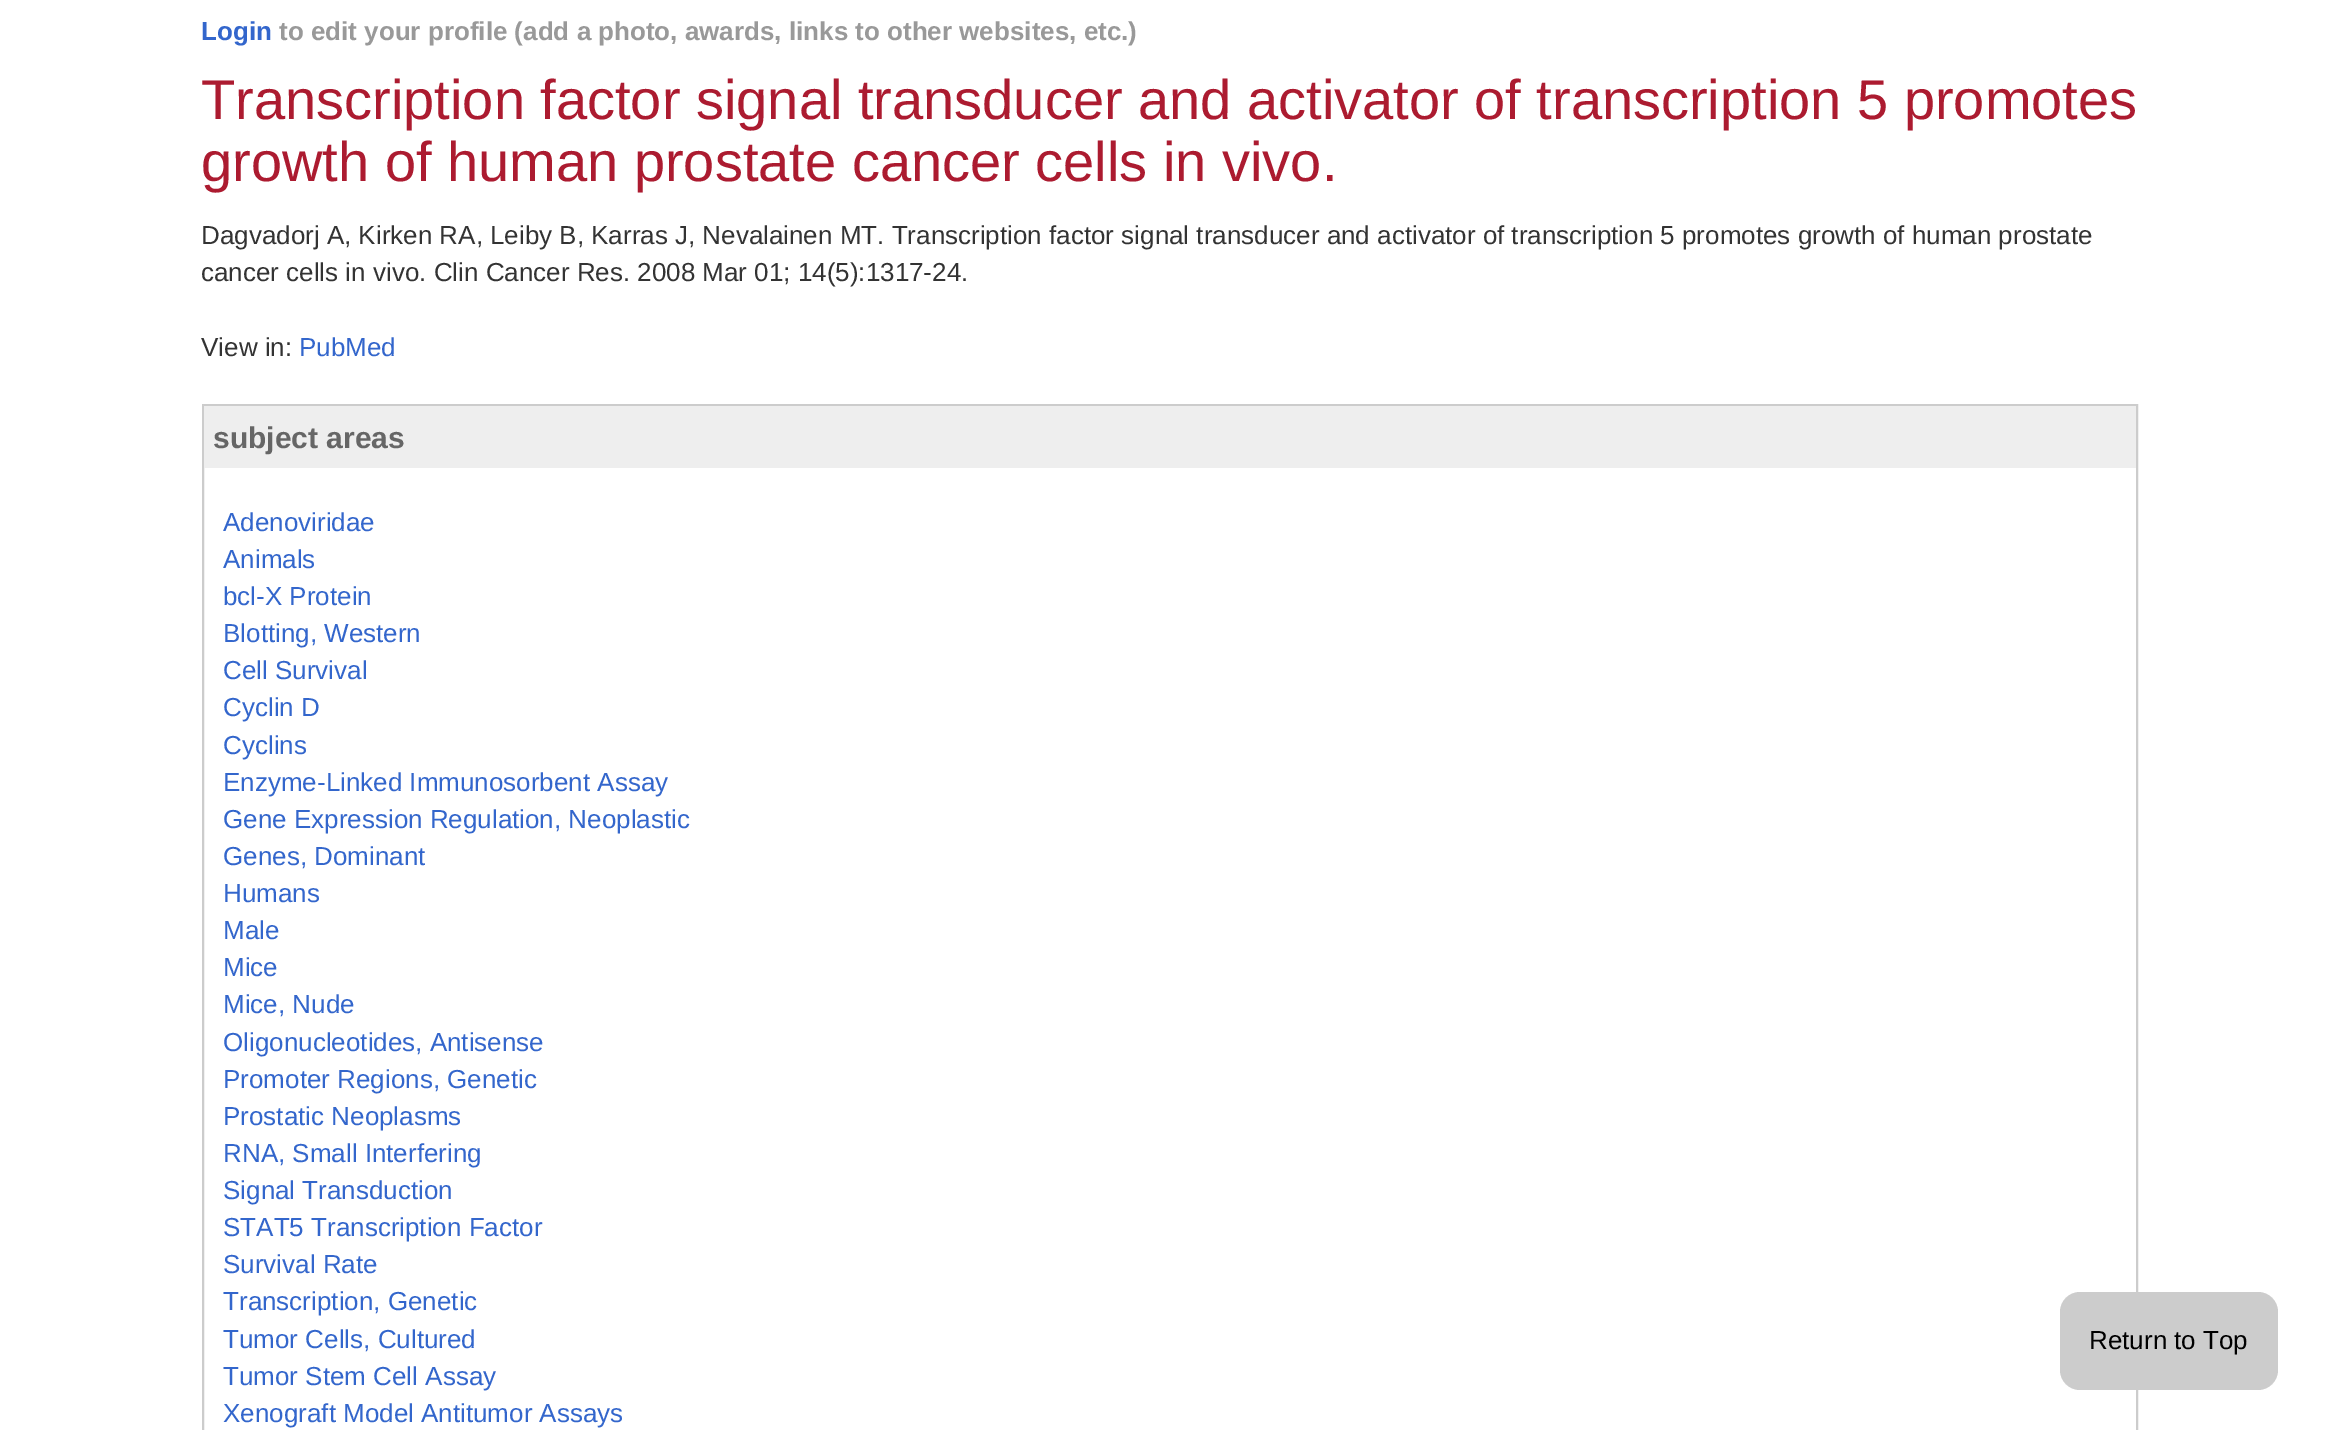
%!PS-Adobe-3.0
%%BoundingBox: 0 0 2337 1430
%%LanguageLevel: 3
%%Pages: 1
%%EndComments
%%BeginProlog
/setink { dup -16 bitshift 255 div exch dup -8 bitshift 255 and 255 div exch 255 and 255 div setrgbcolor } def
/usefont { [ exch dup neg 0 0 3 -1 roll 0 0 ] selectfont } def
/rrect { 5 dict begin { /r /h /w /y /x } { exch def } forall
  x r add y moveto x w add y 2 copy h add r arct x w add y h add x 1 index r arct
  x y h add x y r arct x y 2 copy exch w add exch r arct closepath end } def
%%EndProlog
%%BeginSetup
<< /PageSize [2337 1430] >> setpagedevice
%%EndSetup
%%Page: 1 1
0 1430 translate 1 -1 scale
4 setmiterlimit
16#FFFFFF setink
0 0 2337 1430 rectfill
/LiberationSans-Bold 26 usefont
16#3366CC setink
201 40 moveto (Login) show
16#999999 setink
279 40 moveto (to edit your profile \(add a photo, awards, links to other websites, etc.\)) show
/LiberationSans-Regular 56 usefont
16#AC1B30 setink
201 119 moveto (Transcription factor signal transducer and activator of transcription 5 promotes) show
201 181 moveto (growth of human prostate cancer cells in vivo.) show
/LiberationSans-Regular 26 usefont
16#333333 setink
[
    [(Dagvadorj A, Kirken RA, Leiby B, Karras J, Nevalainen MT. Transcription factor signal transducer and activator of transcription 5 promotes growth of human prostate) 201 244]
    [(cancer cells in vivo. Clin Cancer Res. 2008 Mar 01; 14\(5\):1317-24.) 201 281]
    [(View in:) 201 356]
] { aload pop moveto show } forall
16#3366CC setink
299 356 moveto (PubMed) show
16#CCCCCC setink
2 setlinewidth
203 405 1934 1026 rectstroke
16#EEEEEE setink
204 406 1932 62 rectfill
/LiberationSans-Bold 30 usefont
16#666666 setink
213 448 moveto (subject areas) show
/LiberationSans-Regular 26 usefont
16#3366CC setink
[
    [(Adenoviridae) 223 531]
    [(Animals) 223 568]
    [(bcl-X Protein) 223 605]
    [(Blotting, Western) 223 642]
    [(Cell Survival) 223 679]
    [(Cyclin D) 223 716]
    [(Cyclins) 223 754]
    [(Enzyme-Linked Immunosorbent Assay) 223 791]
    [(Gene Expression Regulation, Neoplastic) 223 828]
    [(Genes, Dominant) 223 865]
    [(Humans) 223 902]
    [(Male) 223 939]
    [(Mice) 223 976]
    [(Mice, Nude) 223 1013]
    [(Oligonucleotides, Antisense) 223 1051]
    [(Promoter Regions, Genetic) 223 1088]
    [(Prostatic Neoplasms) 223 1125]
    [(RNA, Small Interfering) 223 1162]
    [(Signal Transduction) 223 1199]
    [(STAT5 Transcription Factor) 223 1236]
    [(Survival Rate) 223 1273]
    [(Transcription, Genetic) 223 1310]
    [(Tumor Cells, Cultured) 223 1348]
    [(Tumor Stem Cell Assay) 223 1385]
    [(Xenograft Model Antitumor Assays) 223 1422]
] { aload pop moveto show } forall
16#CCCCCC setink
2060 1292 218 98 20 rrect fill
16#000000 setink
2089 1349 moveto (Return to Top) show
showpage
%%EOF
